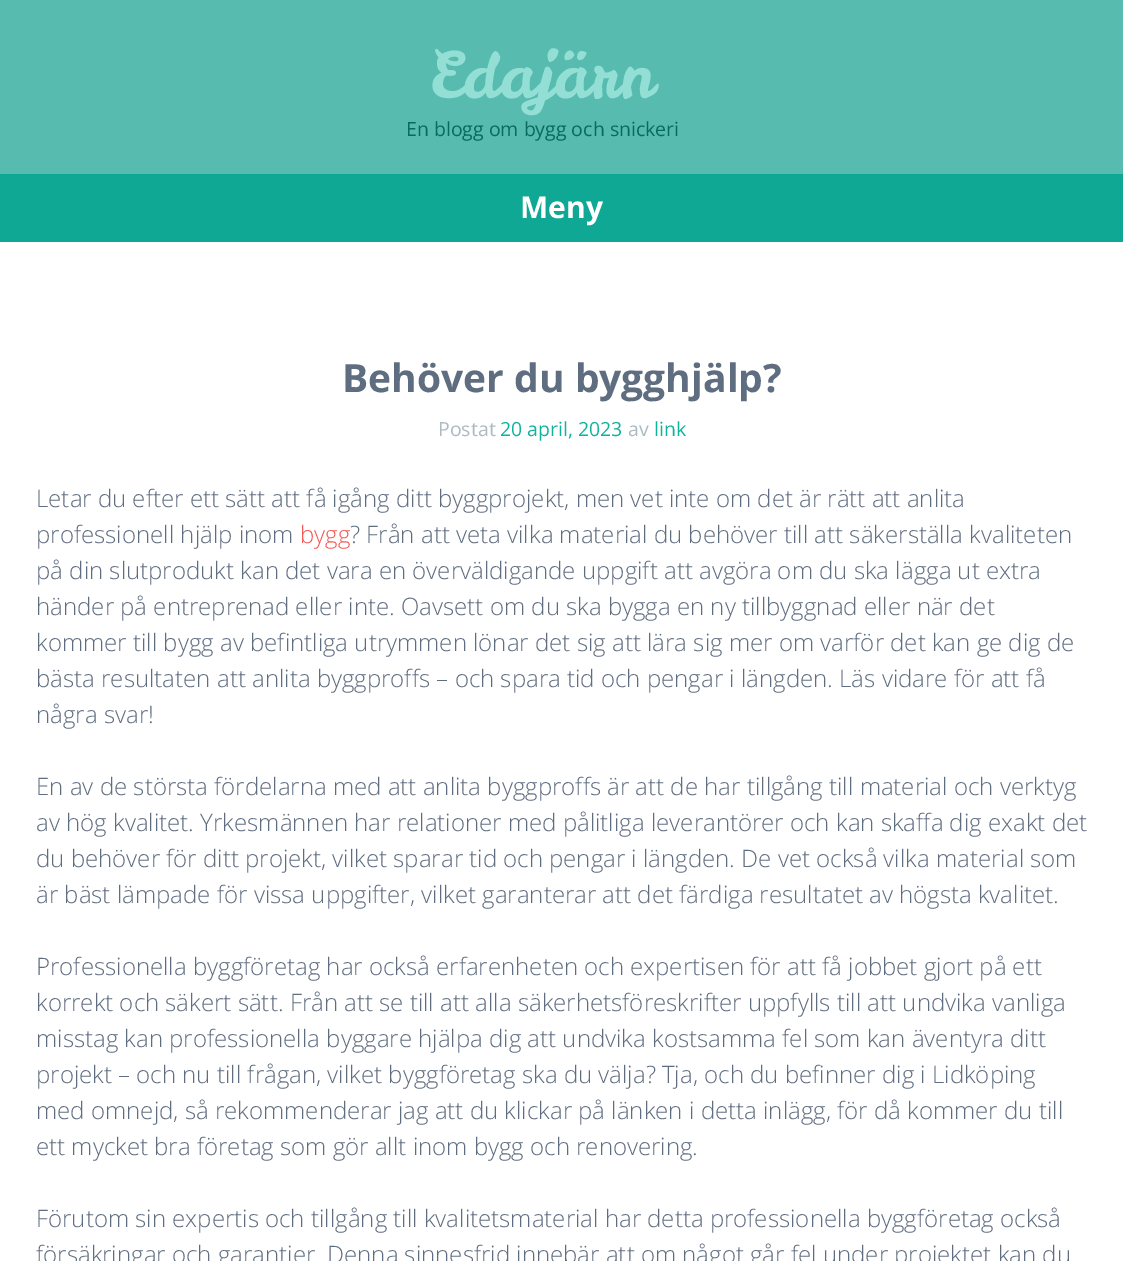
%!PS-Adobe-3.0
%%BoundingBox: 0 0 1123 1261
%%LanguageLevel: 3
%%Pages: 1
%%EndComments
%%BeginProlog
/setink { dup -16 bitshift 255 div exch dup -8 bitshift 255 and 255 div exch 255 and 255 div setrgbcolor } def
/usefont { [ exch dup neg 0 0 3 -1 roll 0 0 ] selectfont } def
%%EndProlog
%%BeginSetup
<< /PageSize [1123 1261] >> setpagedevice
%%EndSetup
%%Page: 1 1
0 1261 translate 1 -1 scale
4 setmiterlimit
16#FFFFFF setink
0 0 1123 1261 rectfill
16#57BCAF setink
0 0 1123 174 rectfill
/LeckerliOne-Regular 63 usefont
16#93DFD5 setink
430 98 moveto (Edajärn) show
/OpenSans-Regular 19.5 usefont
16#0A6A5E setink
406 136 moveto (En blogg om bygg och snickeri) show
16#0FA895 setink
0 174 1123 68 rectfill
/OpenSans-Bold 30 usefont
16#FFFFFF setink
520 218 moveto (Meny) show
/OpenSans-Bold 39 usefont
16#5F6D80 setink
342 392 moveto (Behöver du bygghjälp?) show
/OpenSans-Regular 19.5 usefont
16#ABBBC0 setink
438 436 moveto (Postat) show
16#0FB39E setink
500 436 moveto (20 april, 2023) show
16#ABBBC0 setink
628 436 moveto (av) show
16#0FB39E setink
654 436 moveto (link) show
/OpenSans-Light 24 usefont
16#5F6D80 setink
36 507 moveto (Letar du efter ett sätt att få igång ditt byggprojekt, men vet inte om det är rätt att anlita) show
36 543 moveto (professionell hjälp inom) show
16#F35955 setink
300 543 moveto (bygg) show
16#5F6D80 setink
[
    [(? Från att veta vilka material du behöver till att säkerställa kvaliteten) 350 543]
    [(på din slutprodukt kan det vara en överväldigande uppgift att avgöra om du ska lägga ut extra) 36 579]
    [(händer på entreprenad eller inte. Oavsett om du ska bygga en ny tillbyggnad eller när det) 36 615]
    [(kommer till bygg av befintliga utrymmen lönar det sig att lära sig mer om varför det kan ge dig de) 36 651]
    [(bästa resultaten att anlita byggproffs – och spara tid och pengar i längden. Läs vidare för att få) 36 687]
    [(några svar!) 36 723]
    [(En av de största fördelarna med att anlita byggproffs är att de har tillgång till material och verktyg) 36 795]
    [(av hög kvalitet. Yrkesmännen har relationer med pålitliga leverantörer och kan skaffa dig exakt det) 36 831]
    [(du behöver för ditt projekt, vilket sparar tid och pengar i längden. De vet också vilka material som) 36 867]
    [(är bäst lämpade för vissa uppgifter, vilket garanterar att det färdiga resultatet av högsta kvalitet.) 36 903]
    [(Professionella byggföretag har också erfarenheten och expertisen för att få jobbet gjort på ett) 36 975]
    [(korrekt och säkert sätt. Från att se till att alla säkerhetsföreskrifter uppfylls till att undvika vanliga) 36 1011]
    [(misstag kan professionella byggare hjälpa dig att undvika kostsamma fel som kan äventyra ditt) 36 1047]
    [(projekt – och nu till frågan, vilket byggföretag ska du välja? Tja, och du befinner dig i Lidköping) 36 1083]
    [(med omnejd, så rekommenderar jag att du klickar på länken i detta inlägg, för då kommer du till) 36 1119]
    [(ett mycket bra företag som gör allt inom bygg och renovering.) 36 1155]
    [(Förutom sin expertis och tillgång till kvalitetsmaterial har detta professionella byggföretag också) 36 1227]
    [(försäkringar och garantier. Denna sinnesfrid innebär att om något går fel under projektet kan du) 36 1263]
] { aload pop moveto show } forall
showpage
%%EOF
